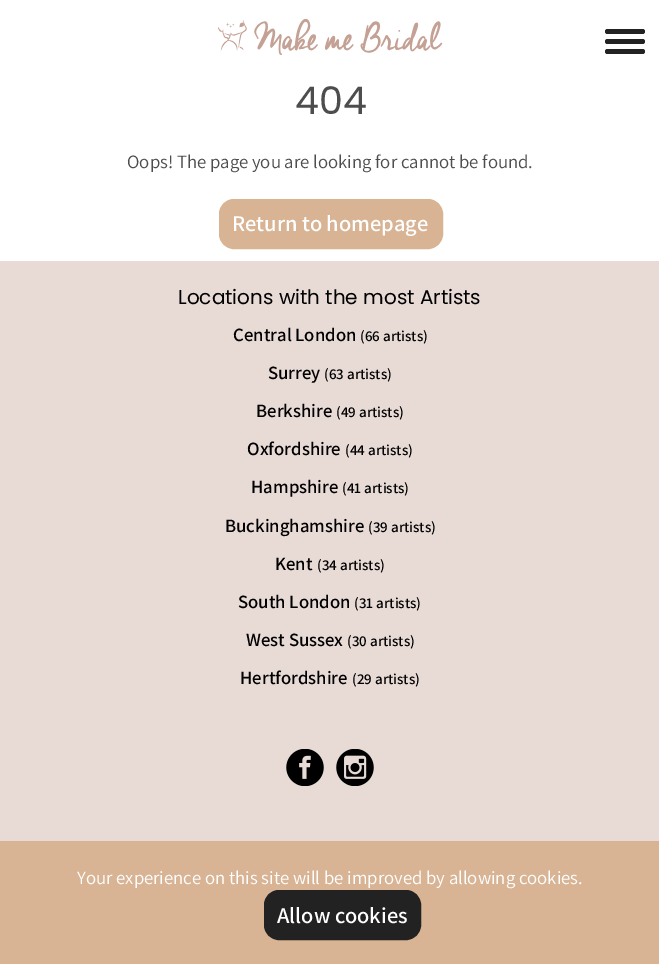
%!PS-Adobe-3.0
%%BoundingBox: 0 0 659 964
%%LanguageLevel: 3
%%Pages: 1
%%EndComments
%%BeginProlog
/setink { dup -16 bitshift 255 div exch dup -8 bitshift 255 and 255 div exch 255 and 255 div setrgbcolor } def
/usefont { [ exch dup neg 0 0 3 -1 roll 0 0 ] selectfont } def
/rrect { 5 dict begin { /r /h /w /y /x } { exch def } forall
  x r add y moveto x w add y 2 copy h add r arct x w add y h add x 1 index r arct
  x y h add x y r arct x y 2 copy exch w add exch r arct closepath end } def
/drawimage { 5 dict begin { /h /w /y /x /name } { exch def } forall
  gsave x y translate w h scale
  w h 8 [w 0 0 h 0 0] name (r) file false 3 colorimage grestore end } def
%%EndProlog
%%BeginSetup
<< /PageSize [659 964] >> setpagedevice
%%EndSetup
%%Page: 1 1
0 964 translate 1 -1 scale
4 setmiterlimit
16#FFFFFF setink
0 0 659 964 rectfill
(img1.raw) 218 19 225 36 drawimage
16#222222 setink
605 39 40 5 2.5 rrect fill
605 29 40 5 2.5 rrect fill
605 49 40 5 2.5 rrect fill
/Poppins-Regular 38 usefont
16#4D4D4D setink
295 114 moveto (404) show
/Assistant-Regular 18.75 usefont
127 168 moveto (Oops! The page you are looking for cannot be found.) show
16#D8B495 setink
219.5 199.5 223 49 14.5 rrect gsave fill grestore
stroke
/Assistant-SemiBold 22.5 usefont
16#FFFFFF setink
232 231 moveto (Return to homepage) show
16#E8DBD6 setink
0 261 659 580 rectfill
/Poppins-Regular 20 usefont
16#000000 setink
178 304 moveto (Locations with the most Artists) show
/Assistant-SemiBold 18.75 usefont
233 341 moveto (Central London) show
/Assistant-SemiBold 15 usefont
360 341 moveto (\(66 artists\)) show
/Assistant-SemiBold 18.75 usefont
268 379 moveto (Surrey) show
/Assistant-SemiBold 15 usefont
324 379 moveto (\(63 artists\)) show
/Assistant-SemiBold 18.75 usefont
256 417 moveto (Berkshire) show
/Assistant-SemiBold 15 usefont
336 417 moveto (\(49 artists\)) show
/Assistant-SemiBold 18.75 usefont
247 455 moveto (Oxfordshire) show
/Assistant-SemiBold 15 usefont
345 455 moveto (\(44 artists\)) show
/Assistant-SemiBold 18.75 usefont
251 493 moveto (Hampshire) show
/Assistant-SemiBold 15 usefont
342 493 moveto (\(41 artists\)) show
/Assistant-SemiBold 18.75 usefont
225 532 moveto (Buckinghamshire) show
/Assistant-SemiBold 15 usefont
368 532 moveto (\(39 artists\)) show
/Assistant-SemiBold 18.75 usefont
275 570 moveto (Kent) show
/Assistant-SemiBold 15 usefont
317 570 moveto (\(34 artists\)) show
/Assistant-SemiBold 18.75 usefont
238 608 moveto (South London) show
/Assistant-SemiBold 15 usefont
354 608 moveto (\(31 artists\)) show
/Assistant-SemiBold 18.75 usefont
246 646 moveto (West Sussex) show
/Assistant-SemiBold 15 usefont
347 646 moveto (\(30 artists\)) show
/Assistant-SemiBold 18.75 usefont
240 684 moveto (Hertfordshire) show
/Assistant-SemiBold 15 usefont
352 684 moveto (\(29 artists\)) show
(img2.raw) 286 749 38 37 drawimage
(img3.raw) 336 749 38 37 drawimage
16#D8B495 setink
0 841 659 123 rectfill
/Assistant-Regular 18.75 usefont
16#FFFFFF setink
77 884 moveto (Your experience on this site will be improved by allowing cookies.) show
16#222222 setink
264.5 890.5 156 49 14.5 rrect gsave fill grestore
stroke
/Assistant-SemiBold 22.5 usefont
16#FFFFFF setink
277 923 moveto (Allow cookies) show
showpage
%%EOF
